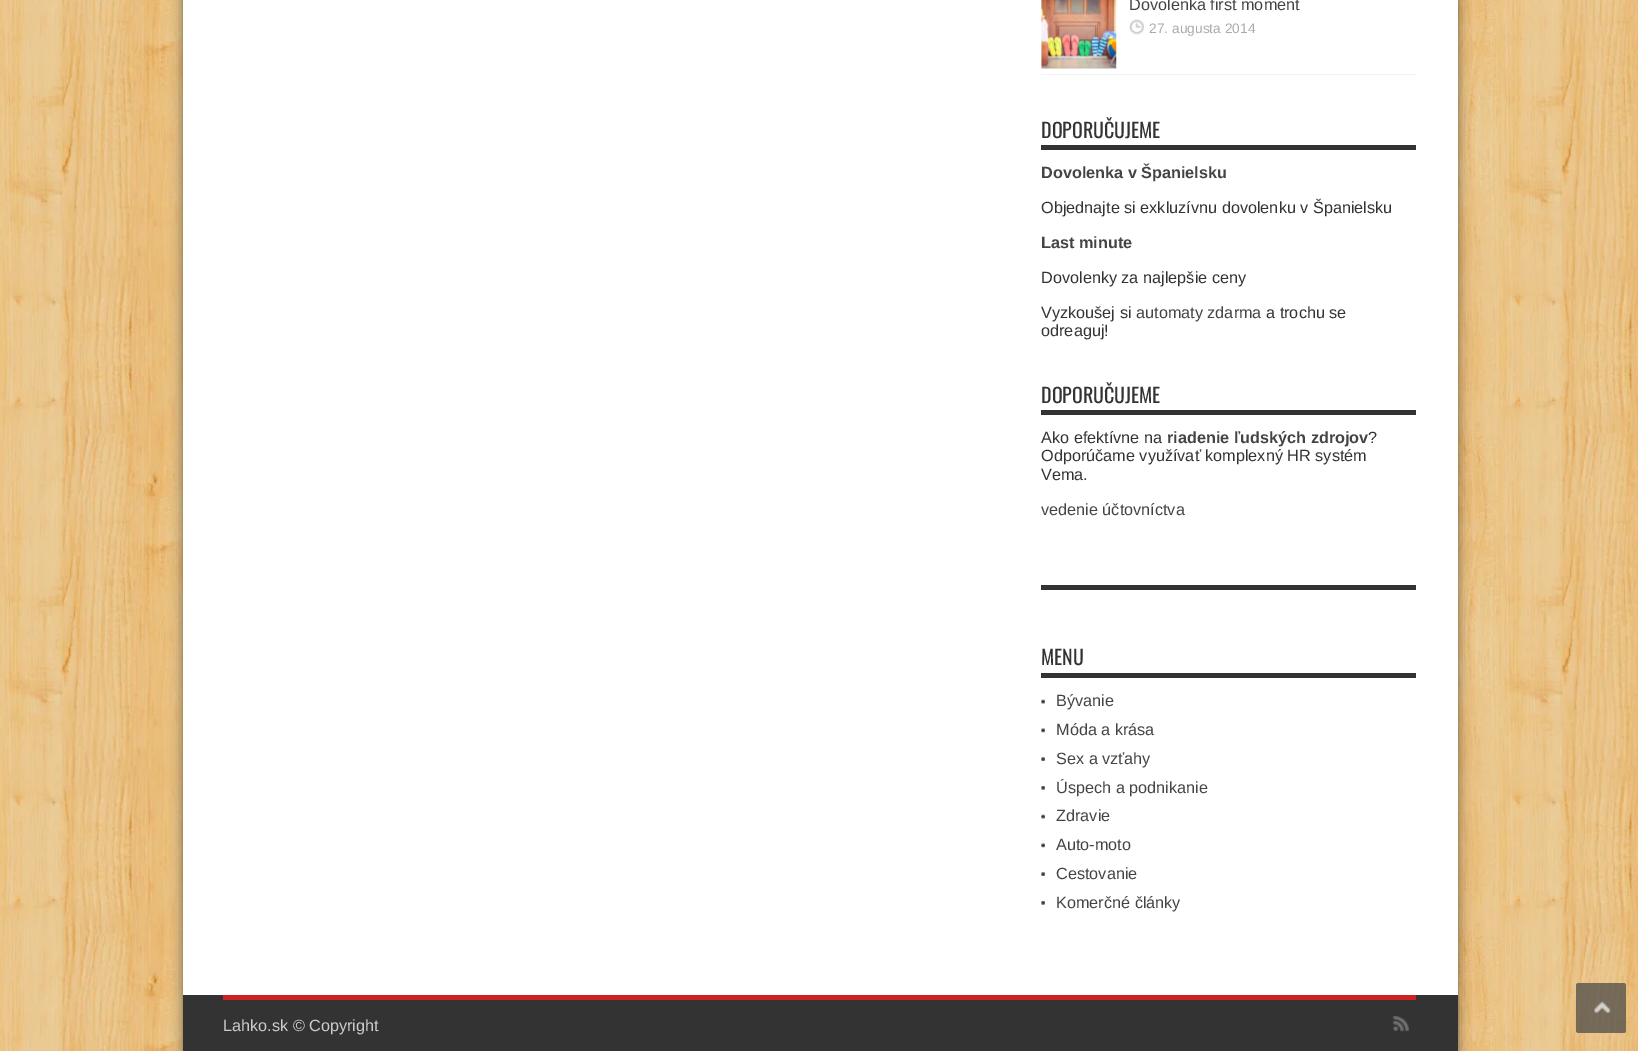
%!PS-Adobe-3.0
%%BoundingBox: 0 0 1638 1051
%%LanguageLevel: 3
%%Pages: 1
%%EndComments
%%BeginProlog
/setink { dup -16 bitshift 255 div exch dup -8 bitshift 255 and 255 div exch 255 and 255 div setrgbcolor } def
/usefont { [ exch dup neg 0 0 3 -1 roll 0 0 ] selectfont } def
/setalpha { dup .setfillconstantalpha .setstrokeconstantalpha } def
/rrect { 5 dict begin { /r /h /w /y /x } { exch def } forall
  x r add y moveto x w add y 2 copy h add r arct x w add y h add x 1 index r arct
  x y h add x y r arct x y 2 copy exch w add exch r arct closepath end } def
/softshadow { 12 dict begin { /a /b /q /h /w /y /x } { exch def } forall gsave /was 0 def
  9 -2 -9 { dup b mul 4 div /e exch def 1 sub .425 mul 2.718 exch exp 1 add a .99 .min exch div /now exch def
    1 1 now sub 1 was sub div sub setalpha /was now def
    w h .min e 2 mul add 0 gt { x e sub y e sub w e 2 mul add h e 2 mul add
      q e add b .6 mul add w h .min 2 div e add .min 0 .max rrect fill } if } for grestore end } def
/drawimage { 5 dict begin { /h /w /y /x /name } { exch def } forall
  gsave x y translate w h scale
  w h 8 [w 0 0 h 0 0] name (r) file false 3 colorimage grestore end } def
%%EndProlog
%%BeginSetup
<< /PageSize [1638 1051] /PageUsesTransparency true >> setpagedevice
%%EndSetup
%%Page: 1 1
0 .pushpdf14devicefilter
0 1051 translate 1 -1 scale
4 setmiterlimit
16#FFFFFF setink
0 0 1638 1051 rectfill
(img1.raw) 0 0 1638 1051 drawimage
16#000000 setink
183 -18 1275 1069 0 6 0.5 softshadow
16#FFFFFF setink
183 0 1275 995 rectfill
16#F2F2F2 setink
1041 74 375 1 rectfill
(img2.raw) 1041 0 76 69 drawimage
/LiberationSans-Regular 16.25 usefont
16#444444 setink
1129 10 moveto (Dovolenka first moment) show
(img3.raw) 1129 19 16 16 drawimage
/LiberationSans-Regular 13.75 usefont
16#AAAAAA setink
1149 33 moveto (27. augusta 2014) show
16#333333 setink
1041 145 375 5 rectfill
/Oswald-Regular 20 usefont
1041 138 moveto (DOPORUČUJEME) show
/LiberationSans-Bold 16.25 usefont
16#444444 setink
1041 178 moveto (Dovolenka v Španielsku) show
/LiberationSans-Regular 16.25 usefont
16#333333 setink
1041 213 moveto (Objednajte si exkluzívnu dovolenku v Španielsku) show
/LiberationSans-Bold 16.25 usefont
16#444444 setink
1041 248 moveto (Last minute) show
/LiberationSans-Regular 16.25 usefont
16#333333 setink
1041 283 moveto (Dovolenky za najlepšie ceny) show
1041 318 moveto (Vyzkoušej si) show
16#444444 setink
1136 318 moveto (automaty zdarma) show
16#333333 setink
1266 318 moveto (a trochu se) show
1041 336 moveto (odreaguj!) show
1041 410 375 5 rectfill
/Oswald-Regular 20 usefont
1041 403 moveto (DOPORUČUJEME) show
/LiberationSans-Regular 16.25 usefont
1041 443 moveto (Ako efektívne na) show
/LiberationSans-Bold 16.25 usefont
16#444444 setink
1167 443 moveto (riadenie ľudských zdrojov) show
/LiberationSans-Regular 16.25 usefont
16#333333 setink
[
    [(?) 1368 443]
    [(Odporúčame využívať komplexný HR systém) 1041 461]
    [(Vema.) 1041 480]
] { aload pop moveto show } forall
16#444444 setink
1041 515 moveto (vedenie účtovníctva) show
16#333333 setink
1041 585 375 5 rectfill
1041 673 375 5 rectfill
/Oswald-Regular 20 usefont
1041 665 moveto (MENU) show
(img4.raw) 1041 699 4 5 drawimage
/LiberationSans-Regular 16.25 usefont
16#444444 setink
1056 706 moveto (Bývanie) show
(img5.raw) 1041 728 4 5 drawimage
1056 735 moveto (Móda a krása) show
(img6.raw) 1041 757 4 4 drawimage
1056 764 moveto (Sex a vzťahy) show
(img7.raw) 1041 786 4 4 drawimage
1056 793 moveto (Úspech a podnikanie) show
(img4.raw) 1041 814 4 5 drawimage
1056 821 moveto (Zdravie) show
(img5.raw) 1041 843 4 5 drawimage
1056 850 moveto (Auto-moto) show
(img6.raw) 1041 872 4 4 drawimage
1056 879 moveto (Cestovanie) show
(img7.raw) 1041 901 4 4 drawimage
1056 908 moveto (Komerčné články) show
16#333333 setink
183 995 1275 56 rectfill
16#CD2122 setink
223 995 1193 5 rectfill
16#CCCCCC setink
223 1031 moveto (Lahko.sk © Copyright) show
(img8.raw) 1392 1016 17 16 drawimage
0.7 setalpha
16#444444 setink
1576 983 50 50 2.5 rrect fill
1 setalpha
(img9.raw) 1593 1001 18 13 drawimage
.poppdf14devicefilter showpage
%%EOF
